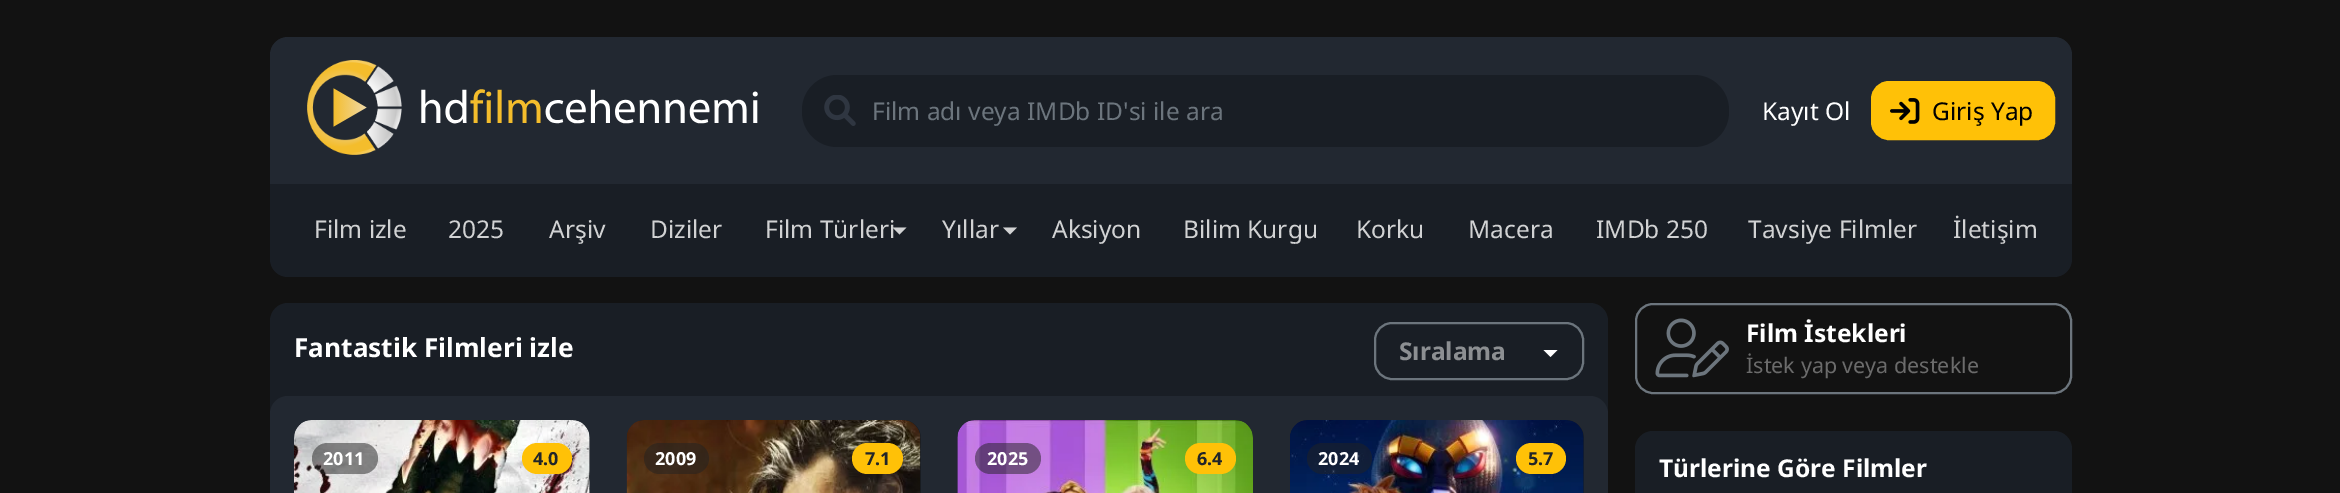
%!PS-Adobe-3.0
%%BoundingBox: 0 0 2340 493
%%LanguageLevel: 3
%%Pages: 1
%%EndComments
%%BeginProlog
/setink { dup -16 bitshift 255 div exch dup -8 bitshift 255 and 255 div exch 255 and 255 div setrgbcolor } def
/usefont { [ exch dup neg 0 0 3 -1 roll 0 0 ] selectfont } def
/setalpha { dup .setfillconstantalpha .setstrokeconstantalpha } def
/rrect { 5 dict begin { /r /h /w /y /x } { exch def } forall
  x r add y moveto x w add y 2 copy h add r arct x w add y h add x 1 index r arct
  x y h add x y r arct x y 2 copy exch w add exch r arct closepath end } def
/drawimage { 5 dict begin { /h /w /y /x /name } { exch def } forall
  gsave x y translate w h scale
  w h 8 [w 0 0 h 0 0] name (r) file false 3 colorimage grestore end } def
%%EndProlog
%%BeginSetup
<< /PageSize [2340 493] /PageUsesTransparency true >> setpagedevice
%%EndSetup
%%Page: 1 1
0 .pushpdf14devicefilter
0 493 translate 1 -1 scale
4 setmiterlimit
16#121212 setink
0 0 2340 493 rectfill
16#222831 setink
288 37 moveto 2054 37 lineto 2064 37 2072 45 2072 55 curveto 2072 184 lineto 270 184 lineto 270 55 lineto 270 45 278 37 288 37 curveto closepath fill
(img1.raw) 307 60 451 95 drawimage
16#191E25 setink
802 75 927 72 35 rrect fill
(img2.raw) 824 95 32 31 drawimage
/NotoSans-Regular 24.5 usefont
16#6C757D setink
872 120 moveto (Film adı veya IMDb ID'si ile ara) show
16#FFFFFF setink
1762 120 moveto (Kayıt Ol) show
16#FFC107 setink
1872 82 182 57 17 rrect gsave fill grestore
2 setlinewidth
stroke
(img3.raw) 1890 98 30 26 drawimage
16#000000 setink
1932 120 moveto (Giriş Yap) show
16#191E25 setink
270 184 moveto 2072 184 lineto 2072 259 lineto 2072 269 2064 277 2054 277 curveto 288 277 lineto 278 277 270 269 270 259 curveto closepath fill
16#D1D2D3 setink
[
    [(Film izle) 314 238]
    [(2025) 448 238]
    [(Arşiv) 549 238]
    [(Diziler) 650 238]
    [(Film Türleri) 765 238]
] { aload pop moveto show } forall
892.5 227.5 moveto 906.5 227.5 lineto 899.5 234.5 lineto closepath fill
942 238 moveto (Yıllar) show
1003 227.5 moveto 1017 227.5 lineto 1010 234.5 lineto closepath fill
[
    [(Aksiyon) 1052 238]
    [(Bilim Kurgu) 1183 238]
    [(Korku) 1356 238]
    [(Macera) 1468 238]
    [(IMDb 250) 1596 238]
    [(Tavsiye Filmler) 1748 238]
    [(İletişim) 1953 238]
] { aload pop moveto show } forall
16#191E25 setink
270 303 1338 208 18 rrect fill
/NotoSans-Bold 26.25 usefont
16#FFFFFF setink
294 357 moveto (Fantastik Filmleri izle) show
16#6C757D setink
1375 323 208 56 17 rrect stroke
/NotoSans-Bold 24.5 usefont
16#8C8F92 setink
1399 360 moveto (Sıralama) show
16#FFFFFF setink
1543.5 350 moveto 1557.5 350 lineto 1550.5 357 lineto closepath fill
16#222831 setink
270 396 1338 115 18 rrect fill
16#191E25 setink
294 420 296 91 18 rrect fill
(img4.raw) 294 420 296 73 drawimage
0.5 setalpha
16#212121 setink
312 443 66 31 15.5 rrect fill
/NotoSans-Bold 18 usefont
1 setalpha
16#FFFFFF setink
323 465 moveto (2011) show
16#FFC107 setink
522 443 50 31 15.5 rrect fill
16#212529 setink
533 465 moveto (4.0) show
16#191E25 setink
627 420 294 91 18 rrect fill
(img5.raw) 626 420 295 73 drawimage
0.5 setalpha
16#212121 setink
644 443 65 31 15.5 rrect fill
1 setalpha
16#FFFFFF setink
655 465 moveto (2009) show
16#FFC107 setink
852 443 51 31 15.5 rrect fill
16#212529 setink
865 465 moveto (7.1) show
16#191E25 setink
957 420 296 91 18 rrect fill
(img6.raw) 957 420 296 73 drawimage
0.5 setalpha
16#212121 setink
975 443 66 31 15.5 rrect fill
1 setalpha
16#FFFFFF setink
987 465 moveto (2025) show
16#FFC107 setink
1185 443 51 31 15.5 rrect fill
16#212529 setink
1197 465 moveto (6.4) show
16#191E25 setink
1290 420 294 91 18 rrect fill
(img7.raw) 1290 420 294 73 drawimage
0.5 setalpha
16#212121 setink
1307 443 65 31 15.5 rrect fill
1 setalpha
16#FFFFFF setink
1318 465 moveto (2024) show
16#FFC107 setink
1516 443 50 31 15.5 rrect fill
16#212529 setink
1528 465 moveto (5.7) show
16#6C757D setink
1636 304 435 89 17 rrect stroke
(img8.raw) 1655 318 74 60 drawimage
/NotoSans-Bold 24.5 usefont
16#FFFFFF setink
1746 342 moveto (Film İstekleri) show
/NotoSans-Regular 21.5 usefont
16#6B6B6B setink
1746 373 moveto (İstek yap veya destekle) show
16#191E25 setink
1635 431 437 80 18 rrect fill
/NotoSans-Bold 24.5 usefont
16#FFFFFF setink
1659 477 moveto (Türlerine Göre Filmler) show
.poppdf14devicefilter showpage
%%EOF
